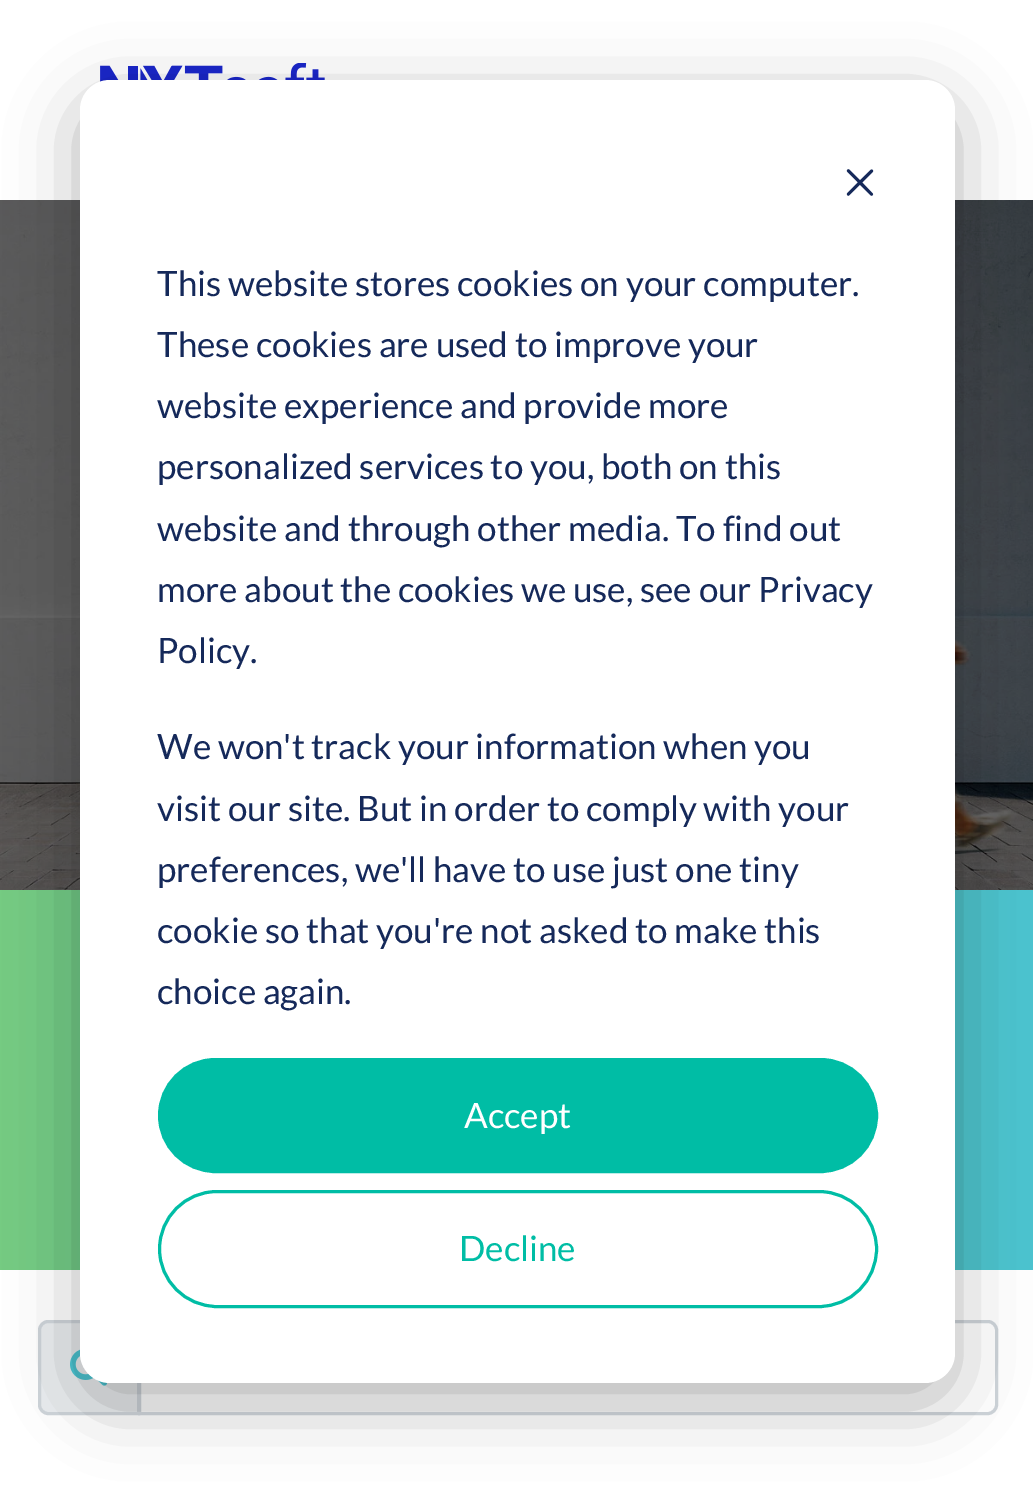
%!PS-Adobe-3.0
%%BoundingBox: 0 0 1033 1487
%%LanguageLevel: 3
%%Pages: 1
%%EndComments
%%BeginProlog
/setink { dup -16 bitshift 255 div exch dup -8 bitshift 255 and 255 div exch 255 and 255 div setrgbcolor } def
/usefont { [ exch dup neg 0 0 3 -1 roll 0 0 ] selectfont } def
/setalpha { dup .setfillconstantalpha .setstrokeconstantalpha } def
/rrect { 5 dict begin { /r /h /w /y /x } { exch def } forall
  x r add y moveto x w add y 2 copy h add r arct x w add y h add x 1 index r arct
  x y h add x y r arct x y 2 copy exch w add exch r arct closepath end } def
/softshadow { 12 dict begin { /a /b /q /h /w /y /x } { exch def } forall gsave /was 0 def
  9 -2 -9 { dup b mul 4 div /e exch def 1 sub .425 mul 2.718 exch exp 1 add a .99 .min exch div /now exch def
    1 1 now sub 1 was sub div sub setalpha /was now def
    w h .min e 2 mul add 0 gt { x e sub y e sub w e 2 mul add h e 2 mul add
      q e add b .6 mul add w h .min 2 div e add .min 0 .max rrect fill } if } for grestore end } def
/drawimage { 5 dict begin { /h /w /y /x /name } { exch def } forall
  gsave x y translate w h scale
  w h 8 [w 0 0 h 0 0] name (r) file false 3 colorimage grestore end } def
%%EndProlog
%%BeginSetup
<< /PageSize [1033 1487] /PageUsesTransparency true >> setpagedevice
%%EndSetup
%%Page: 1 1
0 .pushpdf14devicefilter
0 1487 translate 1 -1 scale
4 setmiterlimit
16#FFFFFF setink
0 0 1033 1487 rectfill
(img1.raw) 100 63 225 19 drawimage
(img2.raw) 0 200 1033 690 drawimage
gsave 0 890 moveto 1033 890 lineto 1033 1270 lineto 0 1270 lineto closepath clip newpath
<< /ShadingType 2 /ColorSpace /DeviceRGB /Coords [0 1080 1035 1080] /Extend [true true] /Function << /FunctionType 2 /Domain [0 1] /C0 [0.463 0.8 0.51] /C1 [0.298 0.769 0.82] /N 1 >> >> shfill grestore
16#E9ECEF setink
48 1321.5 moveto 138.5 1321.5 lineto 138.5 1413.5 lineto 48 1413.5 lineto 43.5 1413.5 39.5 1409.5 39.5 1405 curveto 39.5 1330 lineto 39.5 1325.5 43.5 1321.5 48 1321.5 curveto closepath gsave fill grestore
16#CED4DA setink
3 setlinewidth
stroke
(img3.raw) 70 1349 38 37 drawimage
139.5 1321.5 moveto 988 1321.5 lineto 992.5 1321.5 996.5 1325.5 996.5 1330 curveto 996.5 1405 lineto 996.5 1409.5 992.5 1413.5 988 1413.5 curveto 139.5 1413.5 lineto closepath stroke
16#000000 setink
80 100 875 1303 30 35 0.28 softshadow
16#FFFFFF setink
80 80 875 1303 30 rrect fill
(img4.raw) 846 169 28 27 drawimage
/Lato-Regular 35 usefont
16#15295A setink
[
    [(This website stores cookies on your computer.) 157 296]
    [(These cookies are used to improve your) 157 357]
    [(website experience and provide more) 157 418]
    [(personalized services to you, both on this) 157 479]
    [(website and through other media. To find out) 157 541]
    [(more about the cookies we use, see our Privacy) 157 602]
    [(Policy.) 157 663]
    [(We won't track your information when you) 157 759]
    [(visit our site. But in order to comply with your) 157 821]
    [(preferences, we'll have to use just one tiny) 157 882]
    [(cookie so that you're not asked to make this) 157 943]
    [(choice again.) 157 1004]
] { aload pop moveto show } forall
16#00BDA5 setink
159.5 1059.5 717 112 56 rrect gsave fill grestore
stroke
16#FFFFFF setink
464 1128 moveto (Accept) show
16#00BDA5 setink
159.5 1191.5 717 115 57.5 rrect stroke
459 1261 moveto (Decline) show
.poppdf14devicefilter showpage
%%EOF
